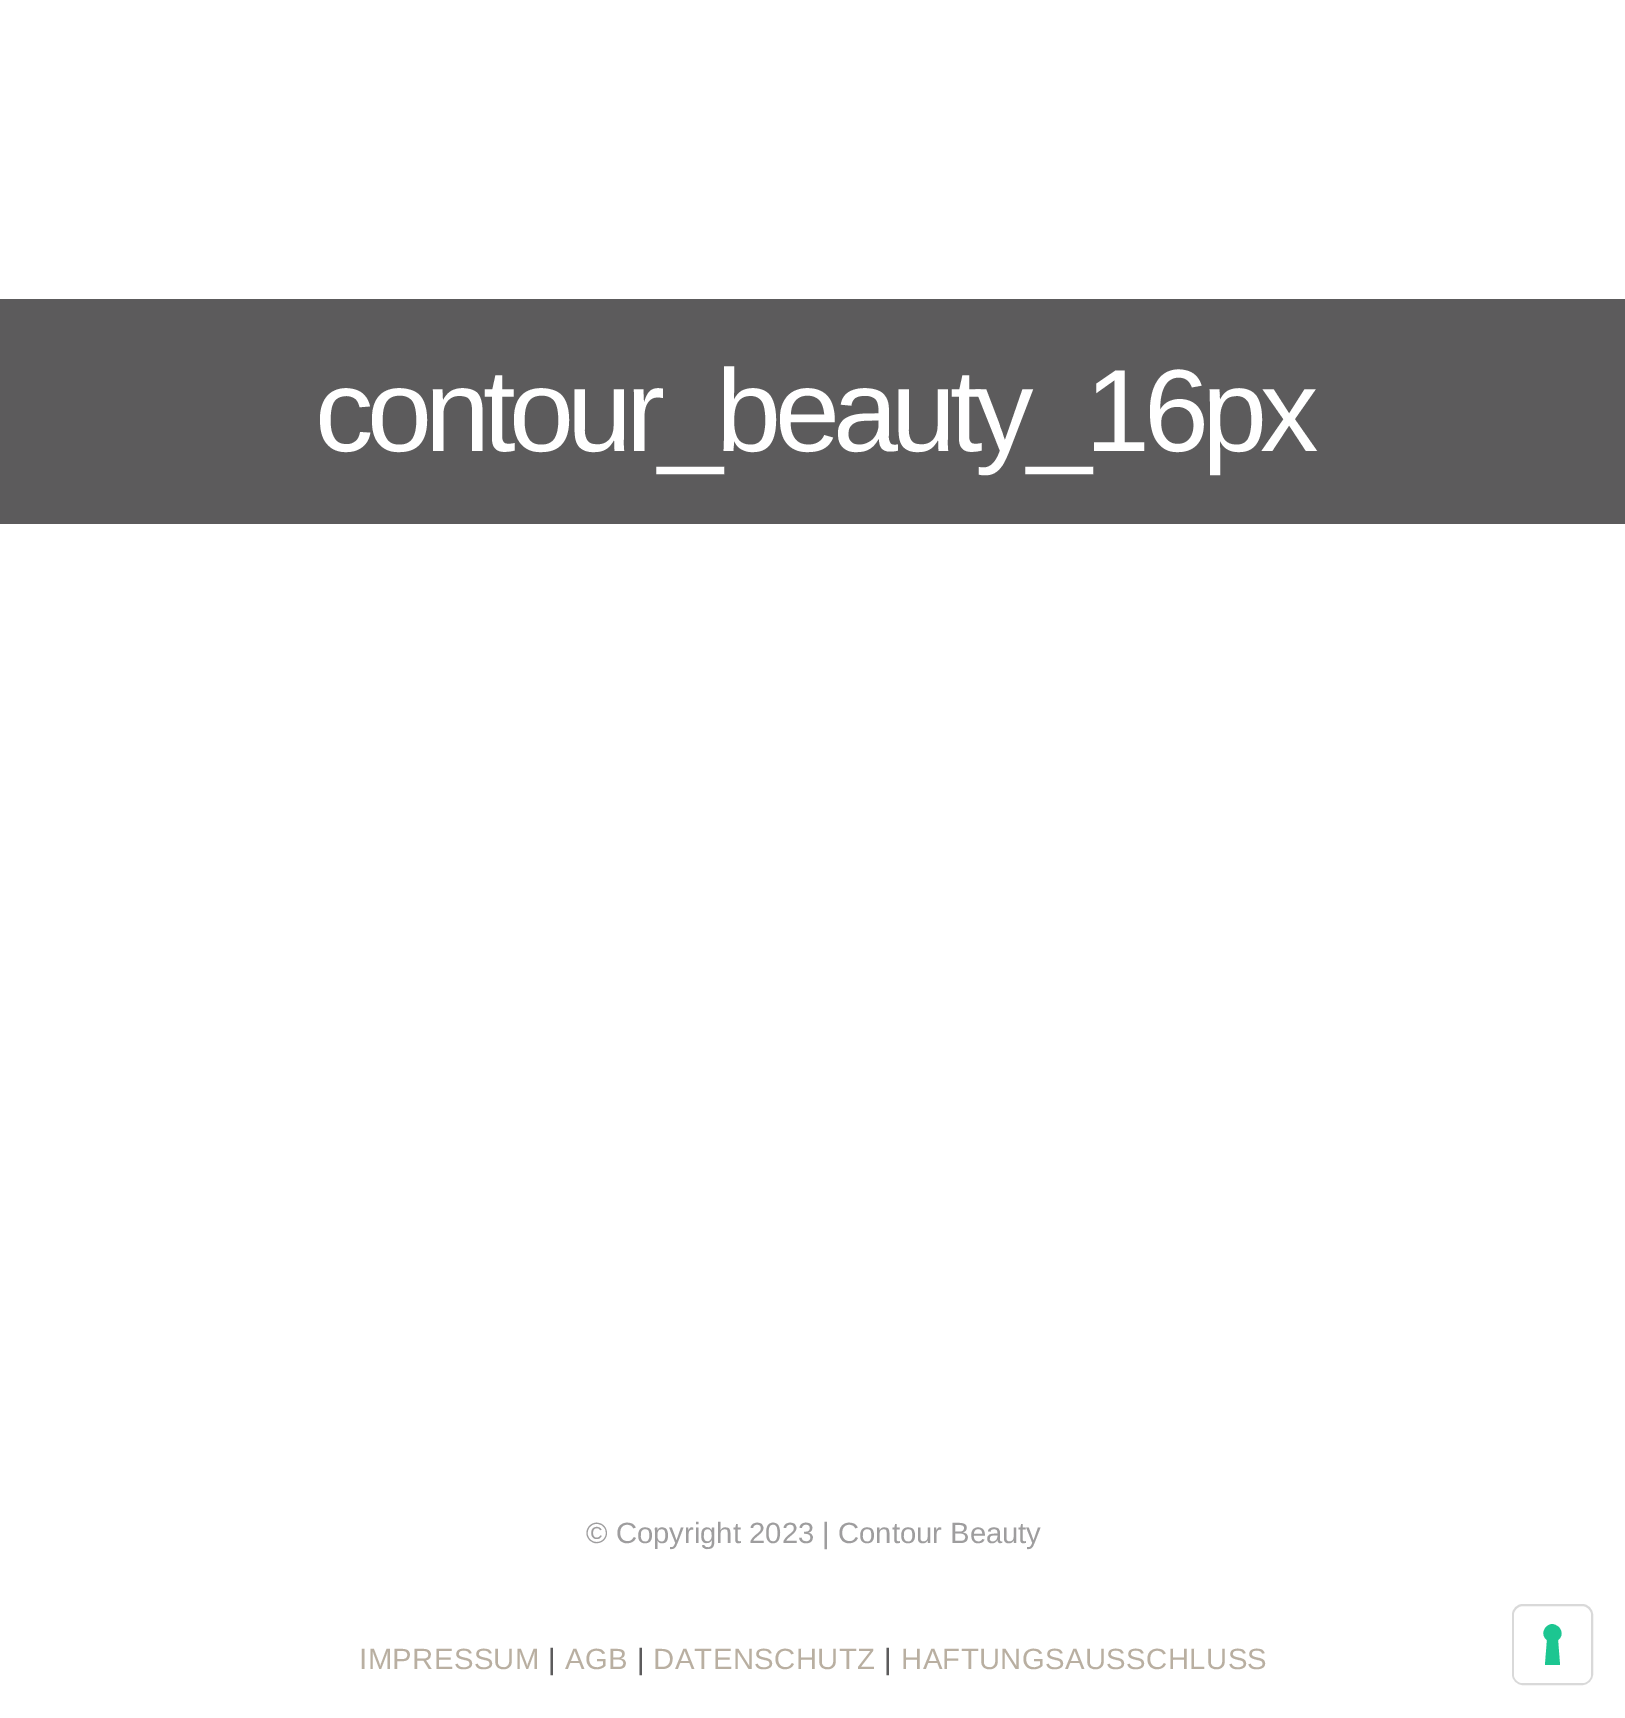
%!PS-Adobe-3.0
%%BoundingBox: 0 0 1625 1718
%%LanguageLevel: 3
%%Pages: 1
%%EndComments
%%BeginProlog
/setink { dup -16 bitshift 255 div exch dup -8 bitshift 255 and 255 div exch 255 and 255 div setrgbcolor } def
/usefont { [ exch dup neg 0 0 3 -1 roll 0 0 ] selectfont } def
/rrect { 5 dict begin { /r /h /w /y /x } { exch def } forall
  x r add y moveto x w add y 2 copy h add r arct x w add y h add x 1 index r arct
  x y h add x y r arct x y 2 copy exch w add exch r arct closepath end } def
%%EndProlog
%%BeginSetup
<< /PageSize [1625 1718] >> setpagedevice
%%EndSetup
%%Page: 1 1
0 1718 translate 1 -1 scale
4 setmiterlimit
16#FFFFFF setink
0 0 1625 1718 rectfill
16#5C5B5C setink
0 299 1625 225 rectfill
/LiberationSans-Regular 117 usefont
16#FFFFFF setink
315 451 moveto -6.75 0 (contour_beauty_16px) ashow
/LiberationSans-Regular 29.25 usefont
16#9E9D9E setink
586 1543 moveto (© Copyright 2023 | Contour Beauty) show
16#B9AFA1 setink
359 1669 moveto 0.4 0 (IMPRESSUM) ashow
16#5C5B5C setink
548 1669 moveto 0.4 0 (|) ashow
16#B9AFA1 setink
565 1669 moveto 0.4 0 (AGB) ashow
16#5C5B5C setink
637 1669 moveto 0.4 0 (|) ashow
16#B9AFA1 setink
653 1669 moveto 0.4 0 (DATENSCHUTZ) ashow
16#5C5B5C setink
884 1669 moveto 0.4 0 (|) ashow
16#B9AFA1 setink
901 1669 moveto 0.4 0 (HAFTUNGSAUSSCHLUSS) ashow
16#D9D9D9 setink
2 setlinewidth
1513 1605 79 79 10 rrect stroke
16#FFFFFF setink
1514 1607 77 76 9 rrect fill
16#1CC691 setink
1552 1624 moveto 1561 1625 1565 1635 1558 1640 curveto 1560 1665 lineto 1545 1665 lineto 1547 1640 lineto 1540 1635 1544 1625 1552 1624 curveto closepath eofill
showpage
%%EOF
